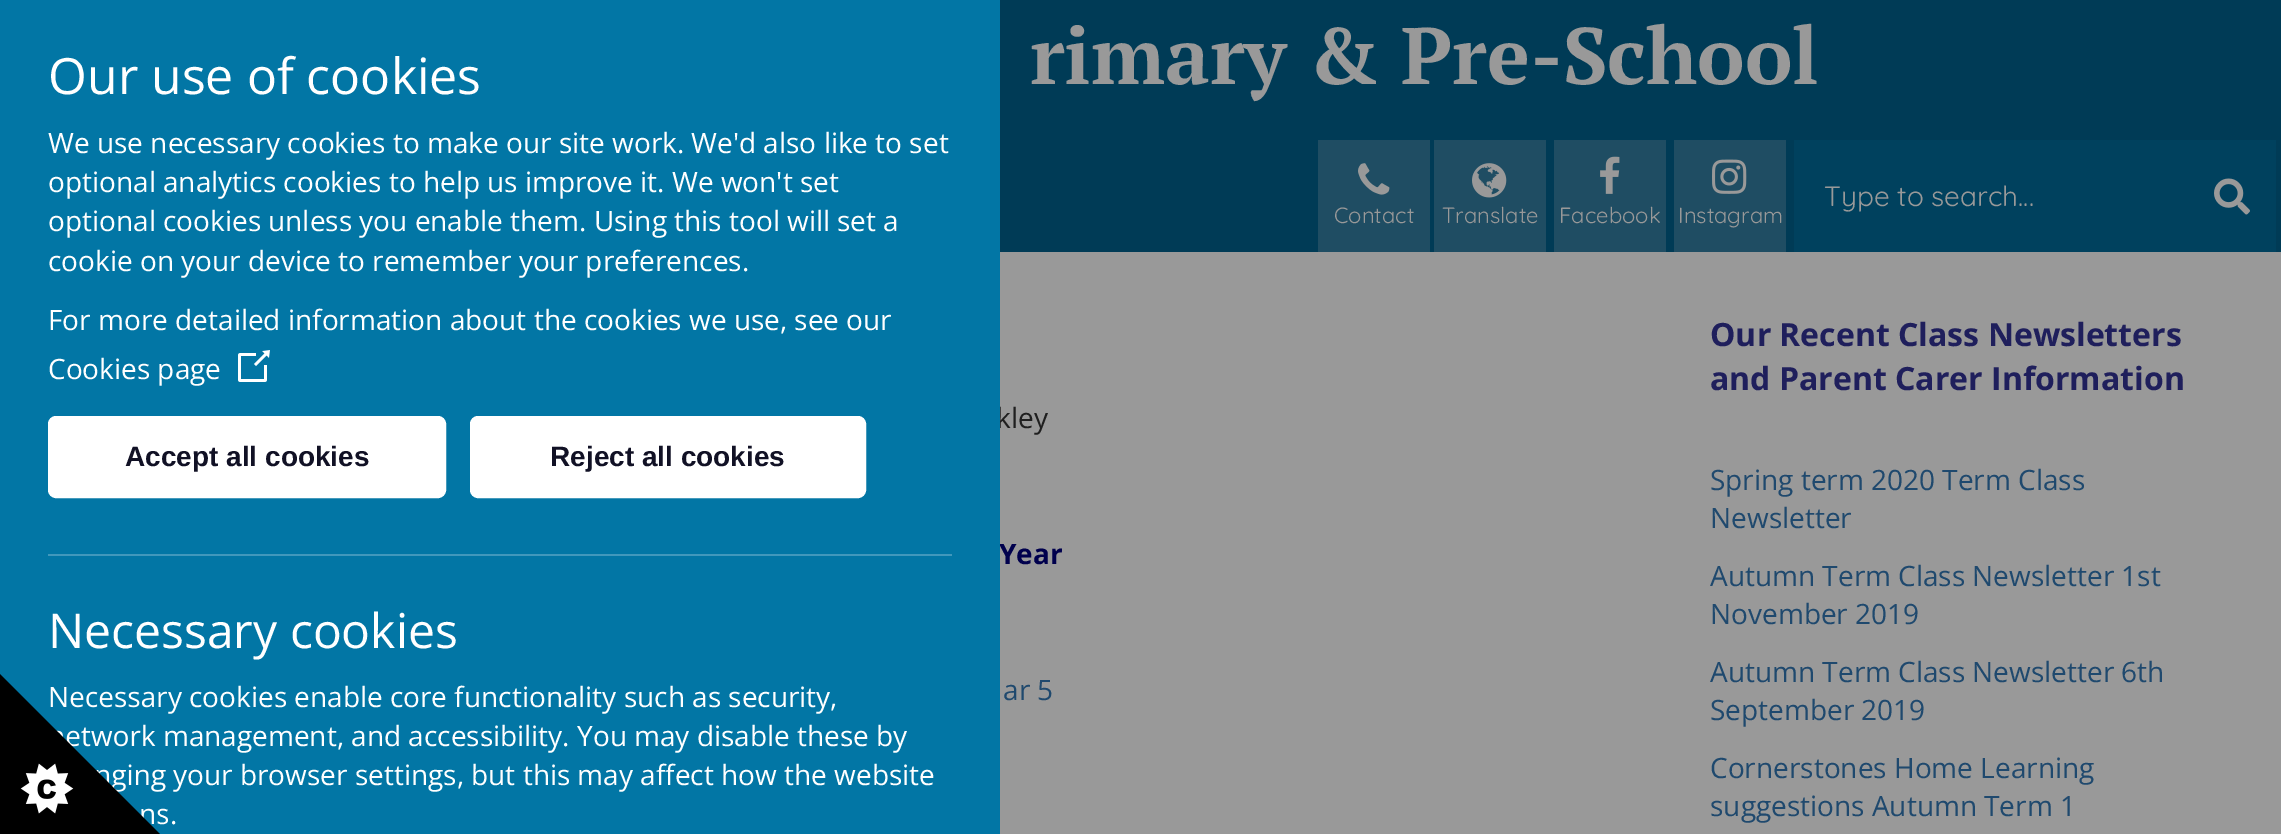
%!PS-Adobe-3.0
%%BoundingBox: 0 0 2281 834
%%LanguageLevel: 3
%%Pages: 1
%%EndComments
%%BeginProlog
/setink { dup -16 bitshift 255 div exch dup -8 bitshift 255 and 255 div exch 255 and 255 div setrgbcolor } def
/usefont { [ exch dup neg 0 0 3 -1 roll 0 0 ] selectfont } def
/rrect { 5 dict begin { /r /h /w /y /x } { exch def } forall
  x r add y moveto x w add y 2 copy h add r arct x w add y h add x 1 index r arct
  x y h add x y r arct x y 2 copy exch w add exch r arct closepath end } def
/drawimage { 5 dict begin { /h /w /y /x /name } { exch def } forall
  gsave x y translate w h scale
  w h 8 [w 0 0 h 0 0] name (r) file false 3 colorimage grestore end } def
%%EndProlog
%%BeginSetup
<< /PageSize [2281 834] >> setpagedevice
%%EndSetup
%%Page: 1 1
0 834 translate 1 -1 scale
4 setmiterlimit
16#999999 setink
0 0 2281 834 rectfill
/OpenSans-Regular 28 usefont
16#1F1F1F setink
996 428 moveto (kley) show
/OpenSans-Bold 28 usefont
16#00004D setink
999 564 moveto (Year) show
16#0276A5 setink
0 0 1000 834 rectfill
/OpenSans-Regular 50 usefont
16#FFFFFF setink
48 94 moveto (Our use of cookies) show
/OpenSans-Regular 28 usefont
[
    [(We use necessary cookies to make our site work. We'd also like to set) 48 153]
    [(optional analytics cookies to help us improve it. We won't set) 48 192]
    [(optional cookies unless you enable them. Using this tool will set a) 48 231]
    [(cookie on your device to remember your preferences.) 48 271]
    [(For more detailed information about the cookies we use, see our) 48 330]
    [(Cookies page) 48 379]
] { aload pop moveto show } forall
(img1.raw) 238 350 32 32 drawimage
50 418 394 78 6 rrect gsave fill grestore
4 setlinewidth
stroke
/LiberationSans-Bold 28 usefont
16#111125 setink
125 466 moveto (Accept all cookies) show
16#FFFFFF setink
472 418 392 78 6 rrect gsave fill grestore
stroke
16#111125 setink
550 466 moveto (Reject all cookies) show
16#4198BC setink
48 554 904 2 rectfill
/OpenSans-Regular 48 usefont
16#FFFFFF setink
48 648 moveto (Necessary cookies) show
/OpenSans-Regular 28 usefont
[
    [(Necessary cookies enable core functionality such as security,) 48 707]
    [(etwork management, and accessibility. You may disable these by) 65 746]
    [(nging your browser settings, but this may affect how the website) 94 785]
    [(ns.) 139 824]
] { aload pop moveto show } forall
(img2.raw) 0 674 160 160 drawimage
16#003B56 setink
1000 0 1281 252 rectfill
/PTSerif-Bold 80 usefont
16#999999 setink
1030 84 moveto (rimary & Pre-School) show
16#00415E setink
1794 140 482 112 rectfill
/Quicksand-Regular 28 usefont
16#999999 setink
1824 206 moveto (Type to search...) show
(img3.raw) 2214 178 36 37 drawimage
16#1F4D63 setink
1318 140 112 112 rectfill
(img4.raw) 1358 163 32 32 drawimage
/Quicksand-Regular 22 usefont
16#999999 setink
1334 223 moveto (Contact) show
16#1F4D63 setink
1434 140 112 112 rectfill
(img5.raw) 1472 163 35 35 drawimage
16#999999 setink
1442 223 moveto (Translate) show
16#1F4D63 setink
1554 140 112 112 rectfill
(img6.raw) 1600 156 20 38 drawimage
16#999999 setink
1559 223 moveto (Facebook) show
16#1F4D63 setink
1674 140 112 112 rectfill
(img7.raw) 1712 159 35 35 drawimage
16#999999 setink
1678 223 moveto (Instagram) show
/OpenSans-Regular 28 usefont
16#1F496E setink
1003 700 moveto (ar 5) show
/OpenSans-Bold 32 usefont
16#1F1F5C setink
1710 346 moveto (Our Recent Class Newsletters) show
1710 390 moveto (and Parent Carer Information) show
/OpenSans-Regular 28 usefont
16#1F496E setink
[
    [(Spring term 2020 Term Class) 1710 490]
    [(Newsletter) 1710 528]
    [(Autumn Term Class Newsletter 1st) 1710 586]
    [(November 2019) 1710 624]
    [(Autumn Term Class Newsletter 6th) 1710 682]
    [(September 2019) 1710 720]
    [(Cornerstones Home Learning) 1710 778]
    [(suggestions Autumn Term 1) 1710 816]
] { aload pop moveto show } forall
showpage
%%EOF
